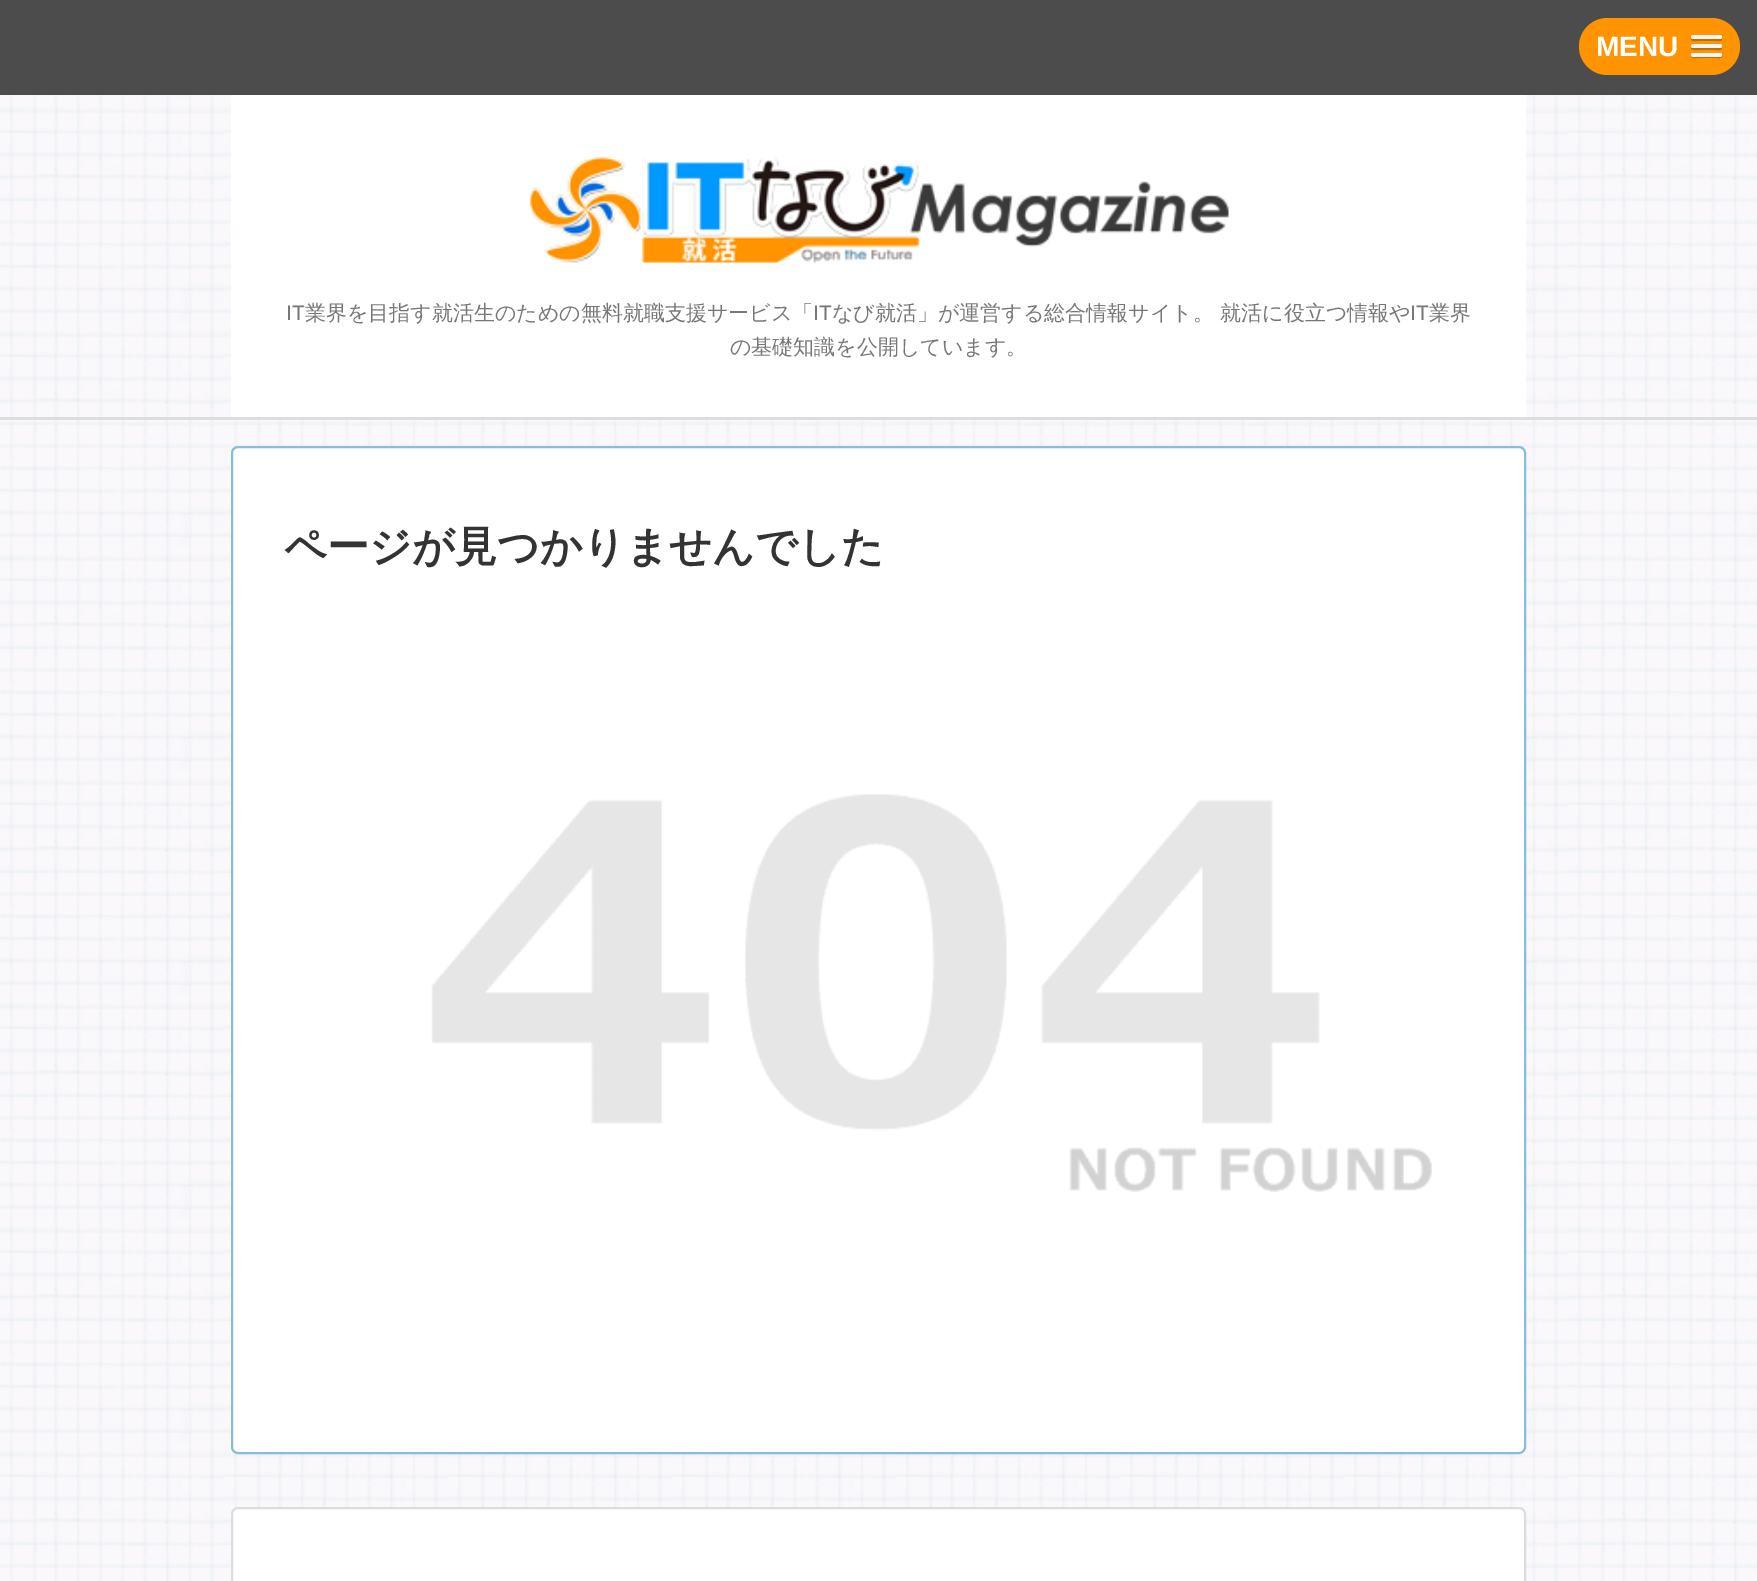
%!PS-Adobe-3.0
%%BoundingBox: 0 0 1757 1581
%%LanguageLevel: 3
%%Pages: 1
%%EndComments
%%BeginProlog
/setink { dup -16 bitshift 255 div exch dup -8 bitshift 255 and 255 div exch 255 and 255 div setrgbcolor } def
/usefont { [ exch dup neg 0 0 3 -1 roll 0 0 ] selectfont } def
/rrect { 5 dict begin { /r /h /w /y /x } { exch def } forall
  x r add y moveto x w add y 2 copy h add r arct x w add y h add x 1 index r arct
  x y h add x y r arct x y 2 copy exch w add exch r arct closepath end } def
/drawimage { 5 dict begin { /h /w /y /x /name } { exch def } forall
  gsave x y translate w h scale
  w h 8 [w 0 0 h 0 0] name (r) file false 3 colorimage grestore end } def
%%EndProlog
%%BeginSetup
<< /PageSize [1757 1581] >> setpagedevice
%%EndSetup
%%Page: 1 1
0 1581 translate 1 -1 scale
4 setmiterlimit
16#FFFFFF setink
0 0 1757 1581 rectfill
(img1.raw) 0 95 1757 1486 drawimage
16#4C4C4C setink
0 0 1757 95 rectfill
16#FF9400 setink
1579 18 161 57 28.5 rrect fill
/LiberationSans-Bold 28 usefont
16#FFFFFF setink
1596 56 moveto (MENU) show
16#BF6F00 setink
1691 38 moveto 1689.5 42 1696.5 41 1697.5 41 curveto 1715.5 41 lineto 1716.5 41 1721.5 42 1722 39.5 curveto 1721.5 38 lineto 1720.5 38.5 lineto 1718 39 1692 39 1691 38 curveto closepath fill
16#F5F5F5 setink
1691 35 31 4 2 rrect fill
16#BF6F00 setink
1691.5 47 moveto 1689 51 1697 50 1697.5 50 curveto 1715.5 50 lineto 1716.5 50 1721.5 51 1722 48.5 curveto 1722 48 1722 47 1721.5 46.5 curveto 1720.5 47 lineto 1718 47.5 1692 47.5 1691.5 47 curveto closepath fill
16#F5F5F5 setink
1691 44 31 4 2 rrect fill
16#BF6F00 setink
1691 55.5 moveto 1690 59 1696.5 58 1697.5 58 curveto 1715.5 58 lineto 1716.5 58 1723.5 59 1722 55 curveto 1720.5 56 lineto 1692 56 lineto closepath fill
16#F5F5F5 setink
1691 53 31 4 2 rrect fill
16#FFFFFF setink
231 95 1295 322 rectfill
(img2.raw) 529 157 700 106 drawimage
/LiberationSans-Regular 21 usefont
16#777777 setink
286 320 moveto (IT) show
/WenQuanYiZenHei-Medium 21 usefont
305 320 moveto (業界を目指す就活生のための無料就職支援サービス「) show
/LiberationSans-Regular 21 usefont
813 320 moveto (IT) show
/WenQuanYiZenHei-Medium 21 usefont
832 320 moveto (なび就活」が運営する総合情報サイト。 就活に役立つ情報や) show
/LiberationSans-Regular 21 usefont
1410 320 moveto (IT) show
/WenQuanYiZenHei-Medium 21 usefont
1429 320 moveto (業界) show
730 354 moveto (の基礎知識を公開しています。) show
16#DDDDDD setink
0 417 1757 3 rectfill
16#FFFFFF setink
232 447 1293 1006 6 rrect gsave fill grestore
16#89BDDE setink
2 setlinewidth
stroke
/WenQuanYiZenHei-Bold 42 usefont
16#333333 setink
284 561 moveto (ページが見つかりませんでした) show
(img3.raw) 431 794 1001 398 drawimage
16#FFFFFF setink
232 1508 1293 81 6 rrect gsave fill grestore
16#DDDDDD setink
stroke
showpage
%%EOF
